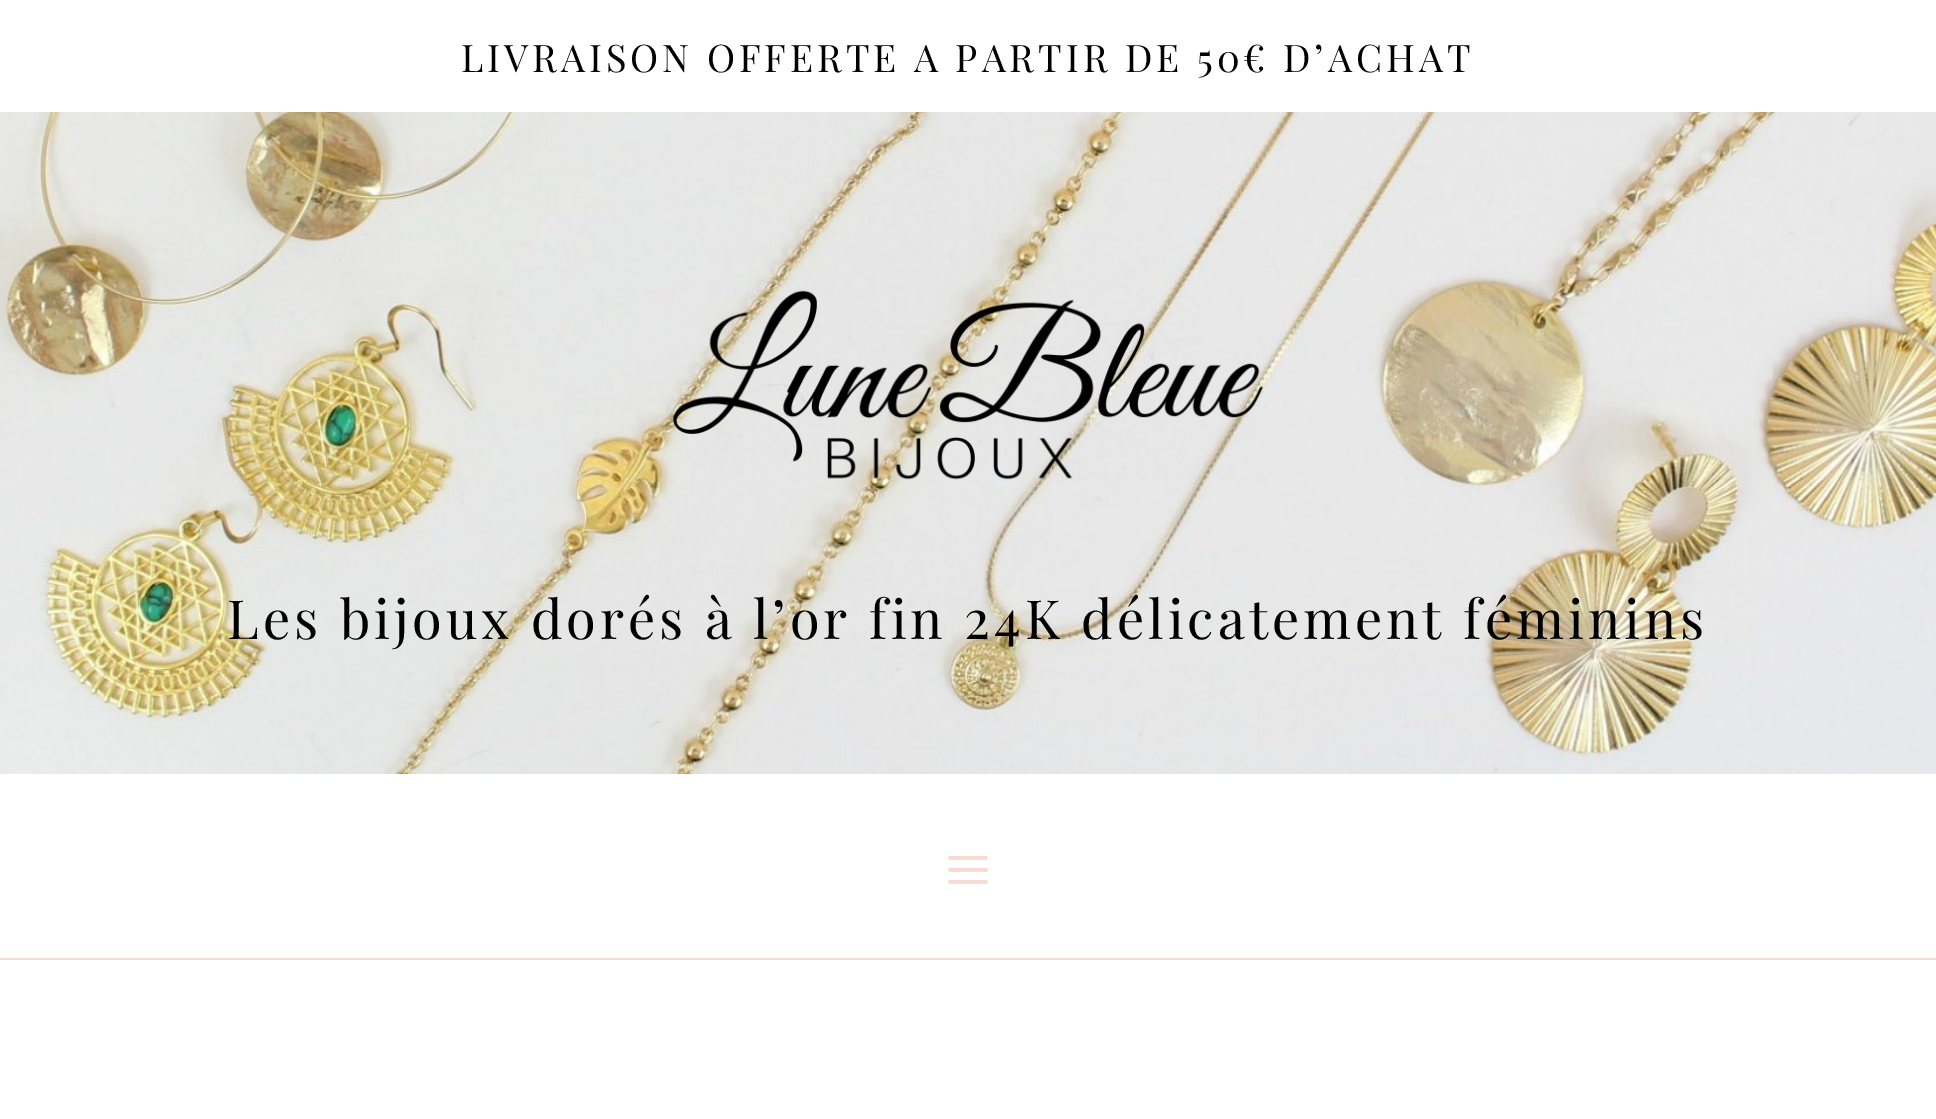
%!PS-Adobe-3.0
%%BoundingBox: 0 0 1936 1119
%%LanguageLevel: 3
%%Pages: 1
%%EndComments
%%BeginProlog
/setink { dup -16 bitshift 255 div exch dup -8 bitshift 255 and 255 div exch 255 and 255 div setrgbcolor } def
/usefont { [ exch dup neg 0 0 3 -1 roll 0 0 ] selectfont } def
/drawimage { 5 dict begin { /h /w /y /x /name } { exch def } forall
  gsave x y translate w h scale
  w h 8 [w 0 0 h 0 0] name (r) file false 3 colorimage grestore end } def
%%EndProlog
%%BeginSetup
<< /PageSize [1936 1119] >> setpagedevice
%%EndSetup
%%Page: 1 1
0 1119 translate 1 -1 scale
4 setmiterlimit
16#FFFFFF setink
0 0 1936 1119 rectfill
/PlayfairDisplay-Regular 38 usefont
16#000000 setink
461 72 moveto 4 0 (LIVRAISON OFFERTE A PARTIR DE 50€ D’ACHAT) ashow
(img1.raw) 0 112 1936 662 drawimage
(img2.raw) 672 290 592 190 drawimage
/PlayfairDisplay-Regular 54 usefont
227 639 moveto 4 0 (Les bijoux dorés à l’or fin 24K délicatement féminins) ashow
(img3.raw) 948 856 40 28 drawimage
16#F7DAD2 setink
0 958 1936 2 rectfill
showpage
%%EOF
